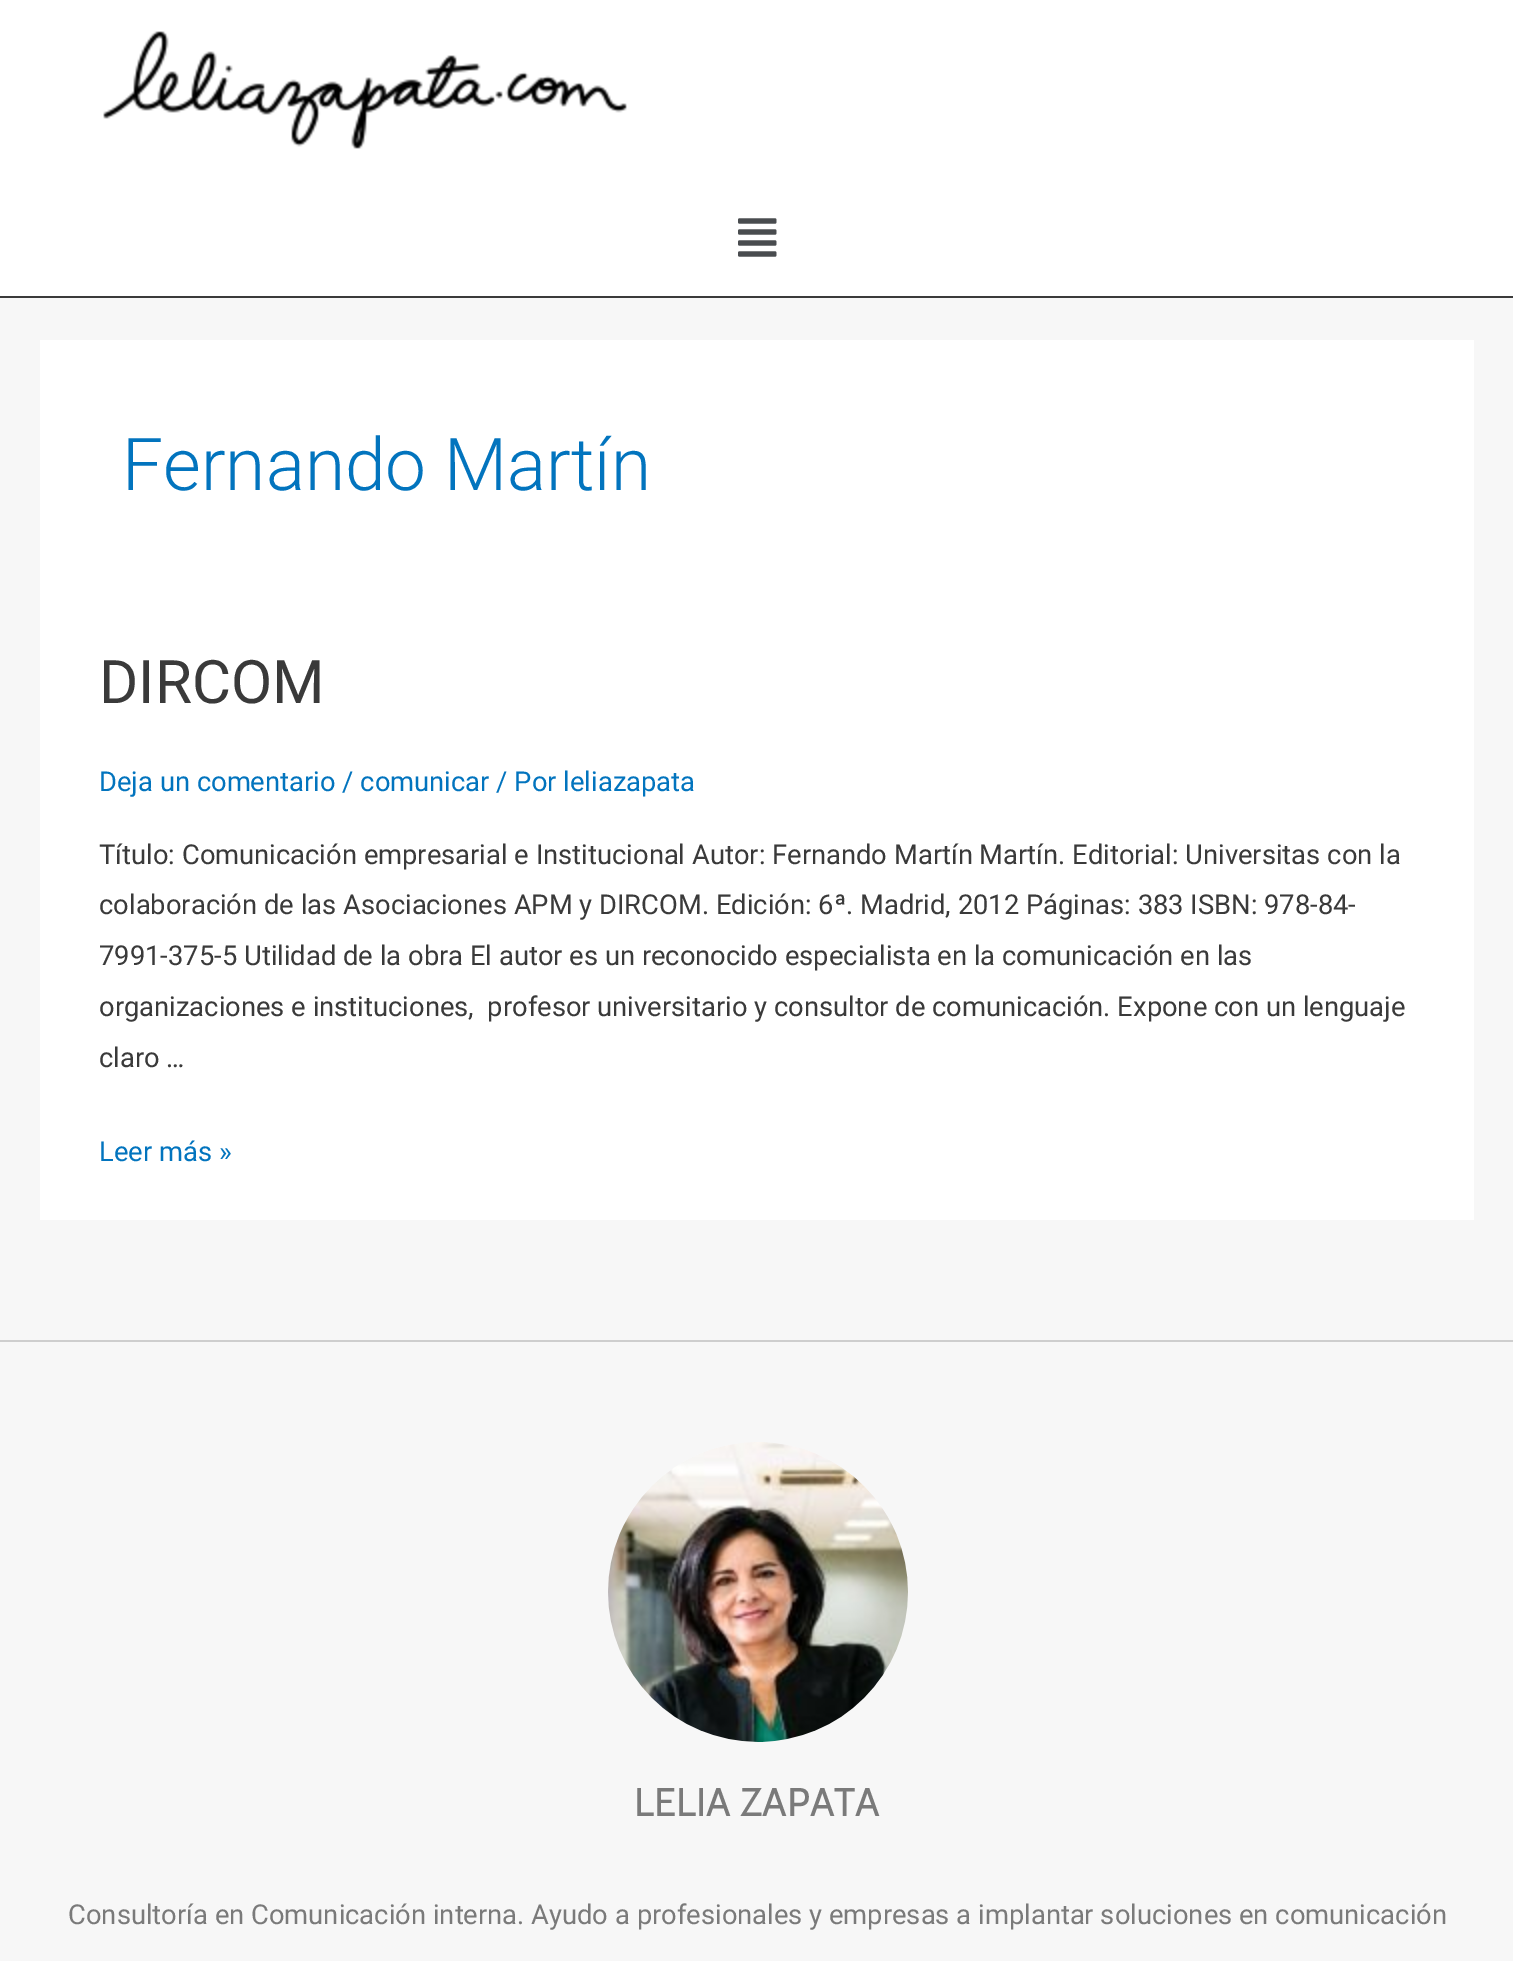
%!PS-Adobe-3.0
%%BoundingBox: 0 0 1513 1961
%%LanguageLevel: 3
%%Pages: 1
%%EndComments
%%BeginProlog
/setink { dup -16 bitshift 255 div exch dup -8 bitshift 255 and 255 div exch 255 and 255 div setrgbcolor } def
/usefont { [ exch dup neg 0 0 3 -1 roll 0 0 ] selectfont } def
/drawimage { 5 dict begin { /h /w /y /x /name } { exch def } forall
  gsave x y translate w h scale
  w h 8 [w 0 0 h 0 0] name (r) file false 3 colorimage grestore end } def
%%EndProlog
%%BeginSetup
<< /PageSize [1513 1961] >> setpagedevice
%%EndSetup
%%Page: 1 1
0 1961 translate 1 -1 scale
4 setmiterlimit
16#F7F7F7 setink
0 0 1513 1961 rectfill
16#FFFFFF setink
0 0 1513 296 rectfill
16#3A3A3A setink
0 296 1513 2 rectfill
(img1.raw) 103 31 524 118 drawimage
(img2.raw) 738 218 39 39 drawimage
16#FFFFFF setink
40 340 1434 880 rectfill
/Roboto-Light 73 usefont
16#0274BE setink
122 490 moveto (Fernando Martín) show
/Roboto-Regular 60 usefont
16#3A3A3A setink
99 703 moveto (DIRCOM) show
/Roboto-Regular 27.35 usefont
16#0274BE setink
99 791 moveto (Deja un comentario / comunicar / Por leliazapata) show
16#3A3A3A setink
[
    [(Título: Comunicación empresarial e Institucional Autor: Fernando Martín Martín. Editorial: Universitas con la) 99 864]
    [(colaboración de las Asociaciones APM y DIRCOM. Edición: 6ª. Madrid, 2012 Páginas: 383 ISBN: 978-84-) 99 914]
    [(7991-375-5 Utilidad de la obra El autor es un reconocido especialista en la comunicación en las) 99 965]
    [(organizaciones e instituciones,  profesor universitario y consultor de comunicación. Expone con un lenguaje) 99 1016]
    [(claro …) 99 1067]
] { aload pop moveto show } forall
16#0274BE setink
99 1161 moveto (Leer más ») show
16#CECECE setink
0 1340 1513 2 rectfill
(img3.raw) 608 1442 300 300 drawimage
/Cabin-Regular 40 usefont
16#7A7A7A setink
634 1816 moveto (LELIA ZAPATA) show
/Roboto-Regular 27.35 usefont
68 1924 moveto (Consultoría en Comunicación interna. Ayudo a profesionales y empresas a implantar soluciones en comunicación) show
showpage
%%EOF
